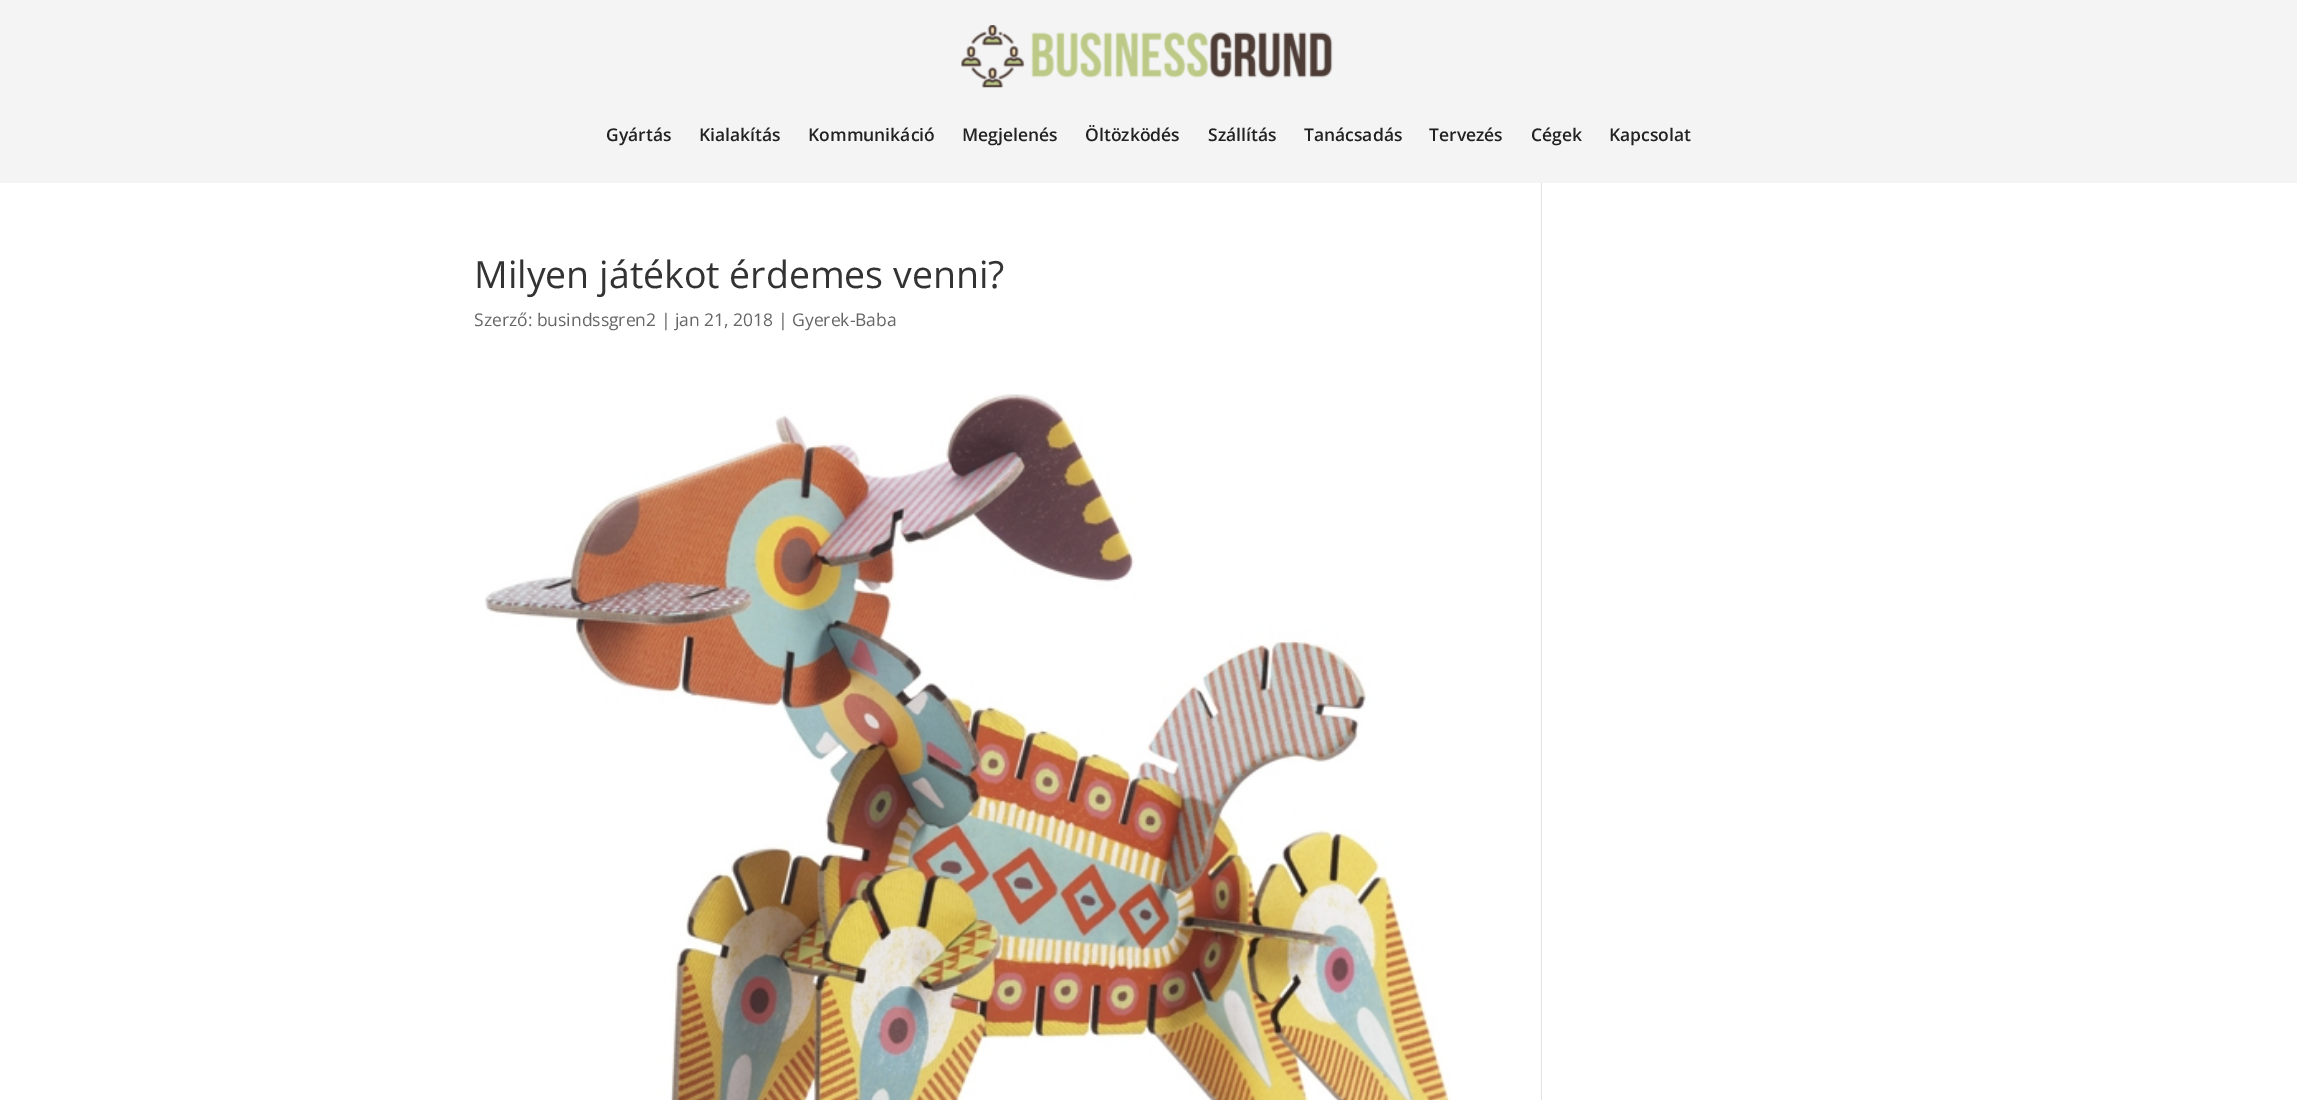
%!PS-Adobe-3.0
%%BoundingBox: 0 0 2297 1100
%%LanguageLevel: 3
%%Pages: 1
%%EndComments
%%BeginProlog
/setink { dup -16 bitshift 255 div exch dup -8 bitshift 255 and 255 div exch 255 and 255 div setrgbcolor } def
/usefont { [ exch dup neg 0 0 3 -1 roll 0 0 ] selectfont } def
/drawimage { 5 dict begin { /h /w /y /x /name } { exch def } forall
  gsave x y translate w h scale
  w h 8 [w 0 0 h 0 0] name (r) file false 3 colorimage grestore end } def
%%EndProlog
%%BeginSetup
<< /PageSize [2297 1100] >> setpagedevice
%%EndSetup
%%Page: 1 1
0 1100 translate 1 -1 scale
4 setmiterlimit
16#FFFFFF setink
0 0 2297 1100 rectfill
16#F4F4F4 setink
0 0 2297 183 rectfill
(img1.raw) 961 25 372 63 drawimage
/OpenSans-SemiBold 17.5 usefont
16#222222 setink
[
    [(Gyártás) 606 141]
    [(Kialakítás) 699 141]
    [(Kommunikáció) 808 141]
    [(Megjelenés) 962 141]
    [(Öltözködés) 1085 141]
    [(Szállítás) 1208 141]
    [(Tanácsadás) 1304 141]
    [(Tervezés) 1429 141]
    [(Cégek) 1531 141]
    [(Kapcsolat) 1609 141]
] { aload pop moveto show } forall
/OpenSans-Regular 37.5 usefont
16#333333 setink
474 288 moveto (Milyen játékot érdemes venni?) show
/OpenSans-Regular 17.5 usefont
16#666666 setink
474 326 moveto (Szerző: busindssgren2 | jan 21, 2018 | Gyerek-Baba) show
(img2.raw) 485 394 966 706 drawimage
16#E2E2E2 setink
1541 183 1 917 rectfill
showpage
%%EOF
